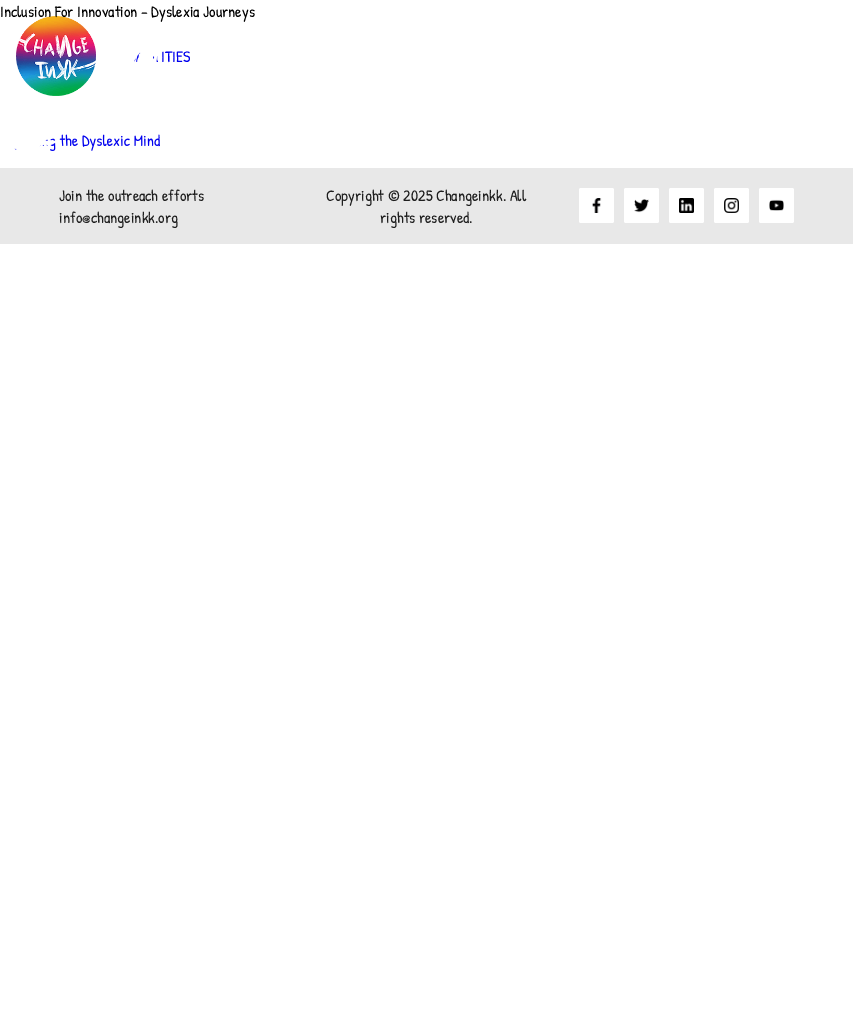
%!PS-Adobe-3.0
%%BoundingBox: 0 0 853 1014
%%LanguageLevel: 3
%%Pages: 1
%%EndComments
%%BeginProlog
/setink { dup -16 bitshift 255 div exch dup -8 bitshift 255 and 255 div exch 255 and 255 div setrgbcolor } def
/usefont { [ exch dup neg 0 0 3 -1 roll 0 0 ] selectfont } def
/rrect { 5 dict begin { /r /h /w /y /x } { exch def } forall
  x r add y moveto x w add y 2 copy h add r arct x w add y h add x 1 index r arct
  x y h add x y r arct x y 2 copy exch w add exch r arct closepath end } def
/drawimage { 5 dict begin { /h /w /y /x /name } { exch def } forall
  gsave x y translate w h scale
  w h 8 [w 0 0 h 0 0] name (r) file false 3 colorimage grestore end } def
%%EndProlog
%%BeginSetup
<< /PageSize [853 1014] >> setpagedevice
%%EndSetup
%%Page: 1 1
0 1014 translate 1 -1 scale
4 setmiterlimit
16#FFFFFF setink
0 0 853 1014 rectfill
/PatrickHand-Regular 16 usefont
16#0000EE setink
49 146 moveto (g the Dyslexic Mind) show
(img1.raw) 0 5 158 146 drawimage
(img2.raw) 16 16 80 80 drawimage
16#000000 setink
0 17 moveto (Inclusion For Innovation – Dyslexia Journeys) show
16#0000EE setink
161 62 moveto (ITIES) show
16#E8E8E8 setink
0 168 853 76 rectfill
16#1F1F1F setink
[
    [(Join the outreach efforts) 59 201]
    [(info@changeinkk.org) 59 223]
    [(Copyright © 2025 Changeinkk. All) 326 201]
    [(rights reserved.) 380 223]
] { aload pop moveto show } forall
16#FFFFFF setink
579 188 35 35 2 rrect fill
(img3.raw) 592 198 10 15 drawimage
624 188 35 35 2 rrect fill
(img4.raw) 634 199 15 14 drawimage
669 188 35 35 2 rrect fill
(img5.raw) 679 198 15 15 drawimage
714 188 35 35 2 rrect fill
(img6.raw) 724 198 15 15 drawimage
759 188 35 35 2 rrect fill
(img7.raw) 769 199 15 12 drawimage
showpage
%%EOF
